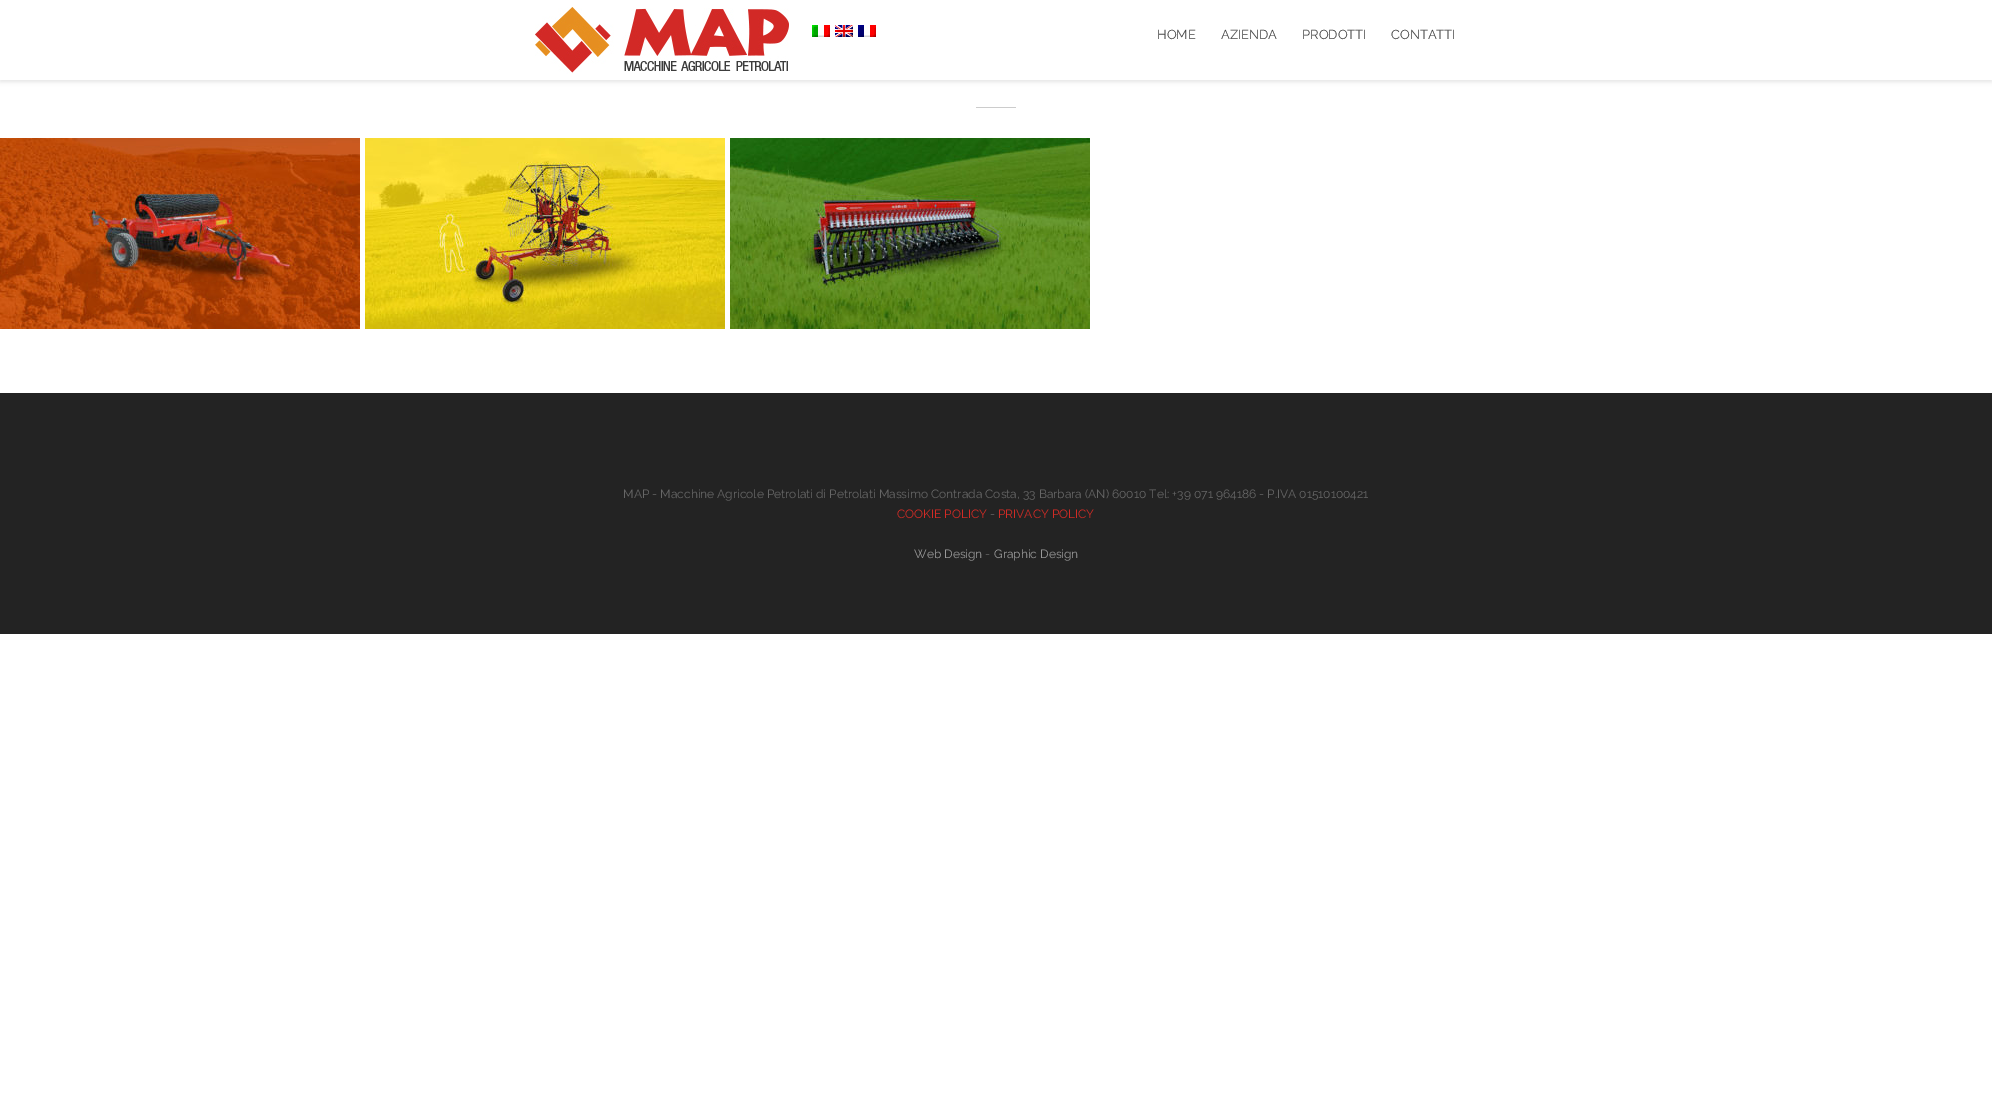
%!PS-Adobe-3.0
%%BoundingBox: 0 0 1992 1099
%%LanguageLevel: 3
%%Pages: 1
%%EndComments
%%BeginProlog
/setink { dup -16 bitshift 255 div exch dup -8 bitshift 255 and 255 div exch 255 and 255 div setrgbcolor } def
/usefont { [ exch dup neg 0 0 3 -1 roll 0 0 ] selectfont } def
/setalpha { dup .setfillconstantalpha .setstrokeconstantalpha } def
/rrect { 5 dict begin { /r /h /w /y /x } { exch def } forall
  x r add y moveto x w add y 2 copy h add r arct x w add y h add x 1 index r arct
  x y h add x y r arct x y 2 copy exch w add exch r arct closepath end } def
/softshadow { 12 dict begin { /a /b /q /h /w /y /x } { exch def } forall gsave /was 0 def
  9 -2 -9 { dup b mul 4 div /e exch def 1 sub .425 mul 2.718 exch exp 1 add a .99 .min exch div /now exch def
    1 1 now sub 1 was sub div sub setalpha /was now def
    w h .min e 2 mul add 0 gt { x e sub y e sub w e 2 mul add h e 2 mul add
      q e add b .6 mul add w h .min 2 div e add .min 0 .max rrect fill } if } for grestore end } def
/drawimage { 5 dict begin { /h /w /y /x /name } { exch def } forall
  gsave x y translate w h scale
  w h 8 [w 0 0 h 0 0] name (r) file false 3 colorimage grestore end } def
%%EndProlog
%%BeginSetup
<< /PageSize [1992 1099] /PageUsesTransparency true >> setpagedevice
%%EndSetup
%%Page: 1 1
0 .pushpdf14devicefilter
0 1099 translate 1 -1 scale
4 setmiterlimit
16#FFFFFF setink
0 0 1992 1099 rectfill
16#000000 setink
0 2 1992 80 0 2 0.1 softshadow
16#FFFFFF setink
0 0 1992 80 rectfill
(img1.raw) 535 7 254 67 drawimage
(img2.raw) 812 25 18 12 drawimage
(img3.raw) 835 25 18 12 drawimage
(img4.raw) 858 25 18 12 drawimage
/Raleway-Thin 13 usefont
16#444444 setink
[
    [(HOME) 1157 39]
    [(AZIENDA) 1221 39]
    [(PRODOTTI) 1302 39]
    [(CONTATTI) 1391 39]
] { aload pop moveto show } forall
16#CCCCCC setink
976 107 40 1 rectfill
(img5.raw) 0 138 360 191 drawimage
(img6.raw) 365 138 360 191 drawimage
(img7.raw) 730 138 360 191 drawimage
16#232323 setink
0 393 1992 241 rectfill
/Raleway-Thin 12 usefont
16#666666 setink
623 498 moveto (MAP - Macchine Agricole Petrolati di Petrolati Massimo Contrada Costa, 33 Barbara \(AN\) 60010 Tel: +39 071 964186 - P.IVA 01510100421) show
16#D22B25 setink
897 518 moveto (COOKIE POLICY) show
16#666666 setink
990 518 moveto (-) show
16#D22B25 setink
998 518 moveto (PRIVACY POLICY) show
16#999999 setink
914 558 moveto (Web Design) show
16#666666 setink
985 558 moveto (-) show
16#999999 setink
994 558 moveto (Graphic Design) show
.poppdf14devicefilter showpage
%%EOF
